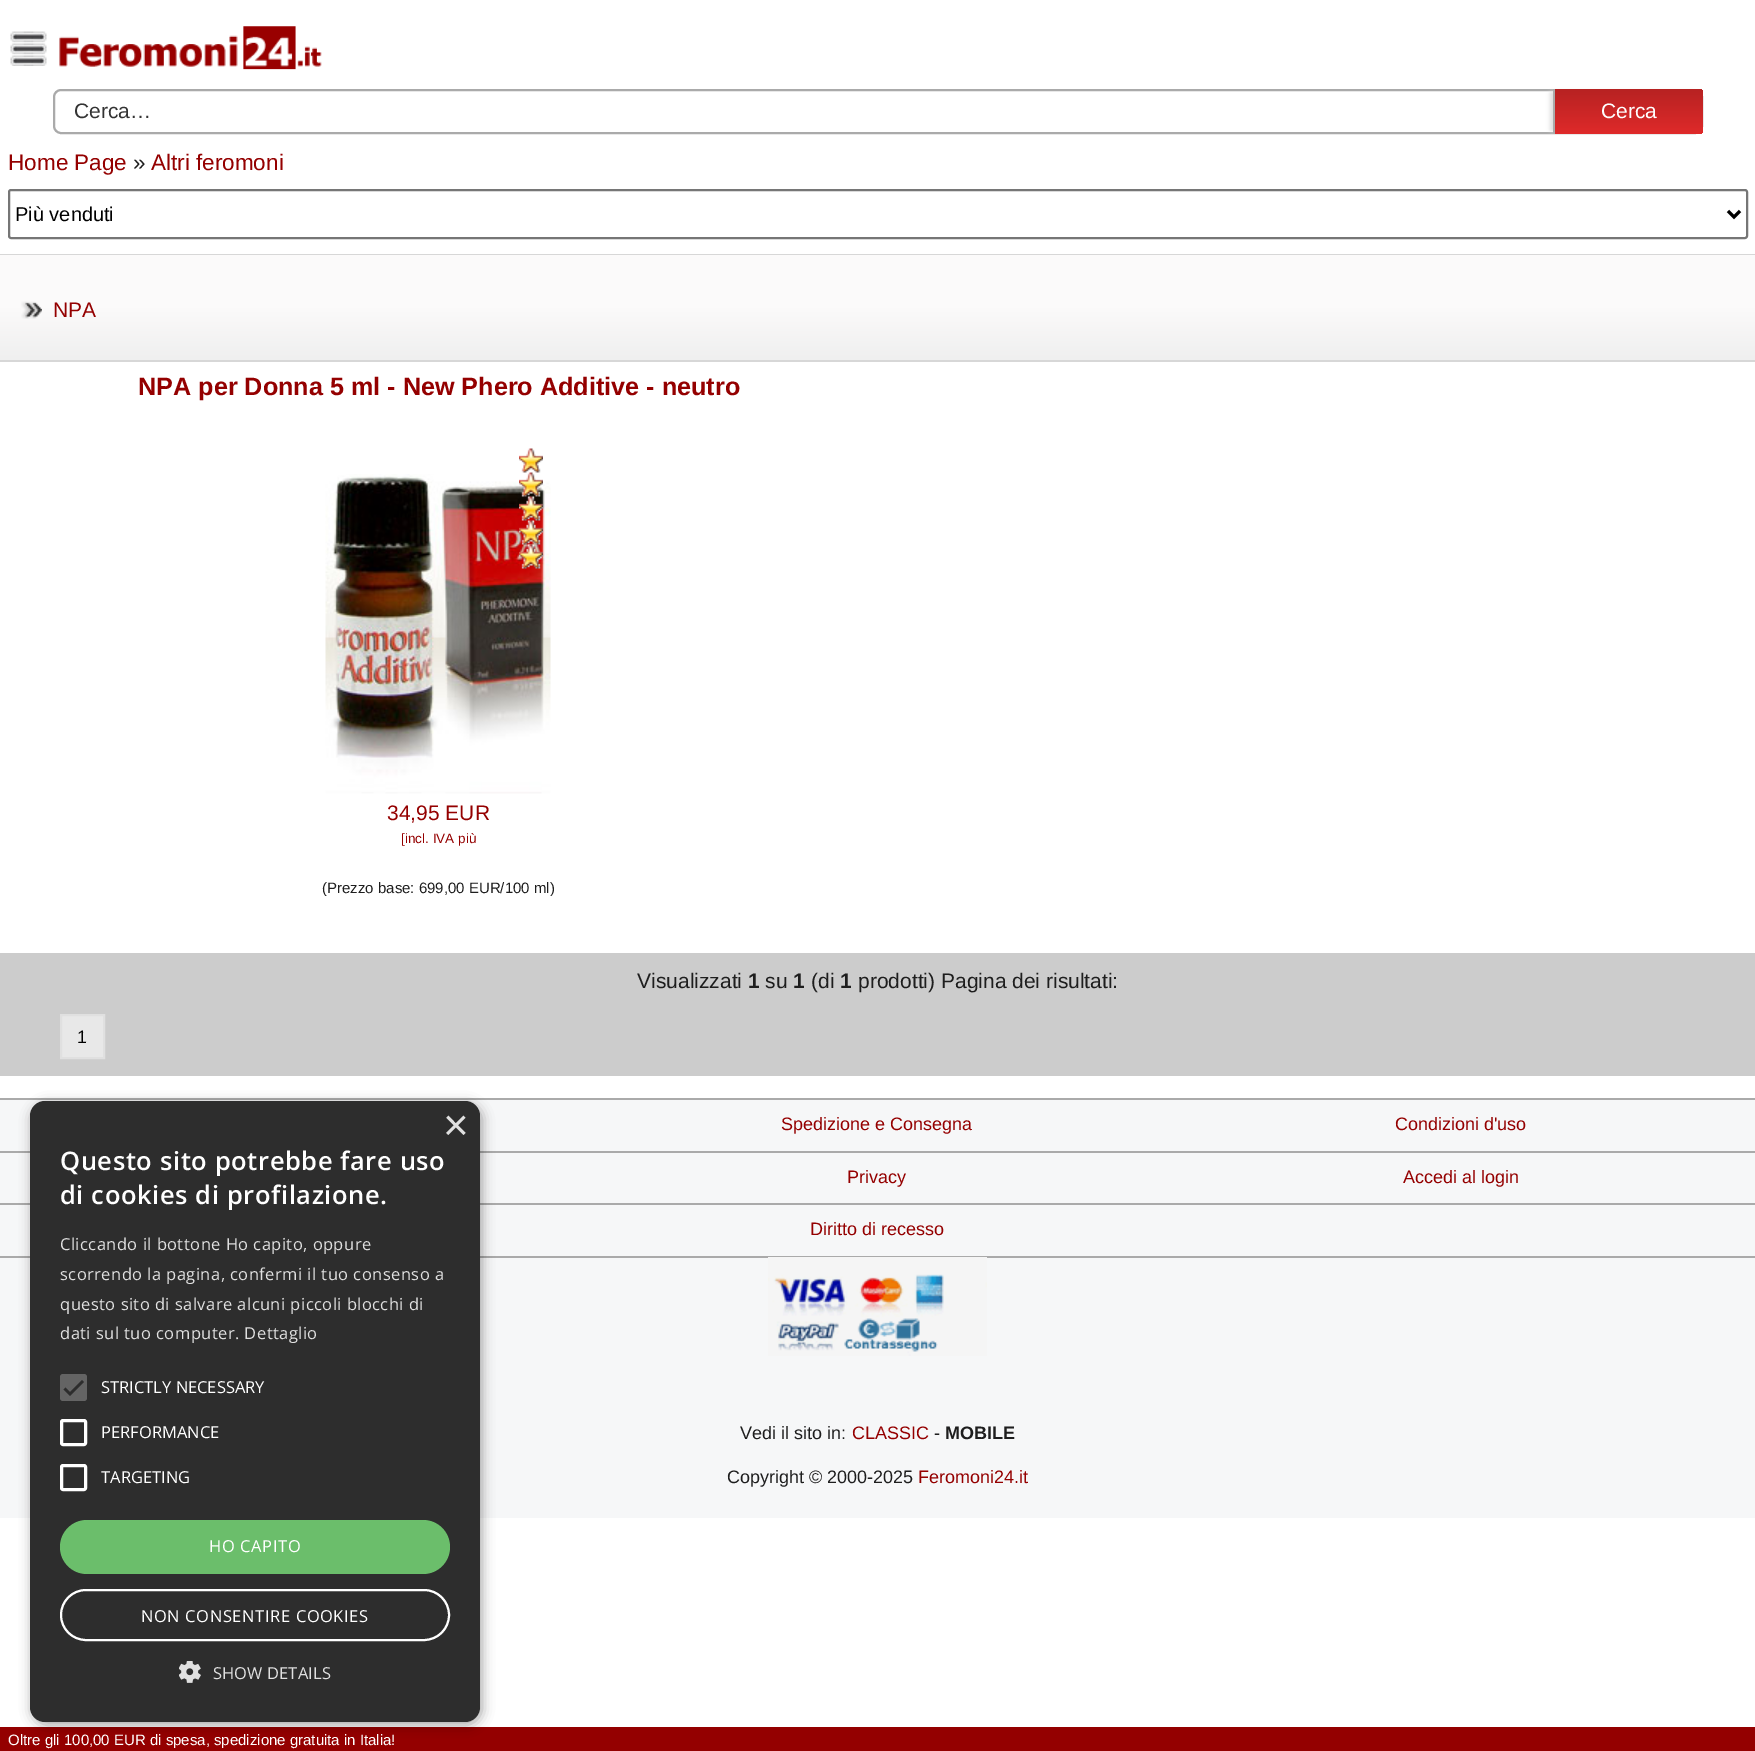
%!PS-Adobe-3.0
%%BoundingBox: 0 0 1755 1751
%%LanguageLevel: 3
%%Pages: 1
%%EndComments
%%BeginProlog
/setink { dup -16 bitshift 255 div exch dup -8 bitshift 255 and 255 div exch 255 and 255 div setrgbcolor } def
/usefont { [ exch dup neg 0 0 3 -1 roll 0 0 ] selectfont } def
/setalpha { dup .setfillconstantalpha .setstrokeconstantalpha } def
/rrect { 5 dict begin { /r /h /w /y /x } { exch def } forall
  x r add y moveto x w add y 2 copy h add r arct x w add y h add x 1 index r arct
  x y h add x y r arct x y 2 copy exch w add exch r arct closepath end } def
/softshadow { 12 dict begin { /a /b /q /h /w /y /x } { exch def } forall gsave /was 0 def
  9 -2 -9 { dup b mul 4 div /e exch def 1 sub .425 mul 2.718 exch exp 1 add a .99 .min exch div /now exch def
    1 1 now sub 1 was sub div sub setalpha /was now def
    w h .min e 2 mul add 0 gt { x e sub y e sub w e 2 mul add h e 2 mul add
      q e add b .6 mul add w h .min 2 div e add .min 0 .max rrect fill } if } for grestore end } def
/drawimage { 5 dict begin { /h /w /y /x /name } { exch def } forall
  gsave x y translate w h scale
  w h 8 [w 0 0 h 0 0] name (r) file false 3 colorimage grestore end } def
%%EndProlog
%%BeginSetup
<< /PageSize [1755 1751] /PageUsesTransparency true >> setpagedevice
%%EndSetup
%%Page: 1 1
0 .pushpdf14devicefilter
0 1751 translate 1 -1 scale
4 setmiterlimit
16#FFFFFF setink
0 0 1755 1751 rectfill
(img1.raw) 10 31 37 35 drawimage
(img2.raw) 59 26 263 44 drawimage
16#AAAAAA setink
2 setlinewidth
54 90 1648 43 7 rrect stroke
/LiberationSans-Regular 21 usefont
16#333333 setink
74 118 moveto (Cerca…) show
16#DDDDDD setink
1550 92 144 39 1.5 2 1 softshadow
gsave 1553 89 moveto 1698 89 lineto 1701 89 1703 91 1703 94 curveto 1703 129 lineto 1703 132 1701 134 1698 134 curveto 1553 134 lineto closepath clip newpath
<< /ShadingType 2 /ColorSpace /DeviceRGB /Coords [1628 88 1628 134] /Extend [true true] /Function << /FunctionType 2 /Domain [0 1] /C0 [0.714 0.133 0.133] /C1 [0.875 0.165 0.165] /N 1 >> >> shfill grestore
16#AAAAAA setink
1553 89 2 45 rectfill
16#FFFFFF setink
1601 118 moveto (Cerca) show
/LiberationSans-Regular 22.5 usefont
16#940000 setink
8 170 moveto (Home Page) show
16#1E1E1E setink
133 170 moveto (») show
16#940000 setink
151 170 moveto (Altri feromoni) show
16#767676 setink
9 190 1738 48 2 rrect stroke
16#000000 setink
3 setlinewidth
1728 211 moveto 1734 217 lineto 1740 211 lineto stroke
/LiberationSans-Regular 20 usefont
15 221 moveto (Più venduti) show
16#D7D7D7 setink
0 254 1755 1 rectfill
gsave 0 255 moveto 1755 255 lineto 1755 360 lineto 0 360 lineto closepath clip newpath
<< /ShadingType 2 /ColorSpace /DeviceRGB /Coords [878 255 878 360] /Extend [true true] /Function << /FunctionType 3 /Domain [0 1] /Functions [<< /FunctionType 2 /Domain [0 1] /C0 [0.984 0.98 0.98] /C1 [0.984 0.98 0.98] /N 1 >> << /FunctionType 2 /Domain [0 1] /C0 [0.984 0.98 0.98] /C1 [0.937 0.937 0.937] /N 1 >>] /Bounds [0.5] /Encode [0 1 0 1] >> >> shfill grestore
(img3.raw) 21 301 21 18 drawimage
/LiberationSans-Regular 21 usefont
16#940000 setink
53 317 moveto (NPA) show
16#D7D7D7 setink
0 360 1755 2 rectfill
/LiberationSans-Bold 25.2 usefont
16#940000 setink
138 395 moveto (NPA per Donna 5 ml - New Phero Additive - neutro) show
(img5.raw) 325 474 226 320 drawimage
(img4.raw) 519 448 24 121 drawimage
/LiberationSans-Regular 21 usefont
387 820 moveto (34,95 EUR) show
/LiberationSans-Regular 13.5 usefont
401 843 moveto ([incl. IVA più) show
/LiberationSans-Regular 15 usefont
16#1E1E1E setink
322 893 moveto (\(Prezzo base: 699,00 EUR/100 ml\)) show
16#CCCCCC setink
0 953 1755 123 rectfill
/LiberationSans-Regular 21 usefont
16#1E1E1E setink
637 988 moveto (Visualizzati) show
/LiberationSans-Bold 21 usefont
748 988 moveto (1) show
/LiberationSans-Regular 21 usefont
765 988 moveto (su) show
/LiberationSans-Bold 21 usefont
793 988 moveto (1) show
/LiberationSans-Regular 21 usefont
811 988 moveto (\(di) show
/LiberationSans-Bold 21 usefont
840 988 moveto (1) show
/LiberationSans-Regular 21 usefont
858 988 moveto (prodotti\) Pagina dei risultati:) show
16#E8E8E8 setink
61 1015 moveto 104 1015 lineto 104 1058 lineto 61 1058 lineto closepath gsave fill grestore
16#E0E0E0 setink
2 setlinewidth
stroke
/LiberationSans-Regular 18 usefont
16#000000 setink
77 1043 moveto (1) show
16#F6F7F8 setink
0 1100 1755 418 rectfill
16#AAAAAA setink
0 1098 1755 2 rectfill
16#940000 setink
781 1130 moveto (Spedizione e Consegna) show
1395 1130 moveto (Condizioni d'uso) show
16#AAAAAA setink
0 1151 1755 2 rectfill
16#940000 setink
847 1183 moveto (Privacy) show
1403 1183 moveto (Accedi al login) show
16#AAAAAA setink
0 1203 1755 2 rectfill
16#940000 setink
810 1235 moveto (Diritto di recesso) show
16#AAAAAA setink
0 1256 1755 2 rectfill
(img6.raw) 768 1257 219 99 drawimage
16#1E1E1E setink
740 1439 moveto (Vedi il sito in:) show
16#940000 setink
852 1439 moveto (CLASSIC) show
16#1E1E1E setink
934 1439 moveto (-) show
/LiberationSans-Bold 18 usefont
945 1439 moveto (MOBILE) show
/LiberationSans-Regular 18 usefont
727 1483 moveto (Copyright © 2000-2025) show
16#940000 setink
918 1483 moveto (Feromoni24.it) show
0 1727 1755 24 rectfill
16#000000 setink
32 1104 450 621 15 6 0.35 softshadow
16#2D2D2D setink
30 1101 450 621 15 rrect fill
/LiberationSans-Regular 44 usefont
16#E0E0E0 setink
443 1140 moveto (×) show
/OpenSans-SemiBold 25.5 usefont
16#FFFFFF setink
60 1170 moveto 0.6 0 (Questo sito potrebbe fare uso) ashow
60 1204 moveto 0.6 0 (di cookies di profilazione.) ashow
/OpenSans-Regular 16.5 usefont
16#E0E0E0 setink
60 1250 moveto 0.45 0 (Cliccando il bottone Ho capito, oppure) ashow
60 1280 moveto 0.45 0 (scorrendo la pagina, confermi il tuo consenso a) ashow
60 1310 moveto 0.45 0 (questo sito di salvare alcuni piccoli blocchi di) ashow
60 1339 moveto 0.45 0 (dati sul tuo computer. Dettaglio) ashow
16#646464 setink
60 1374 27 27 3 rrect fill
16#2D2D2D setink
2.7 setlinewidth
64.5 1388.5 moveto 70 1394 lineto 83 1381 lineto stroke
16#FFFFFF setink
101 1393 moveto (STRICTLY NECESSARY) show
3 setlinewidth
61.5 1420.5 24 24 1.5 rrect stroke
101 1438 moveto (PERFORMANCE) show
61.5 1465.5 24 24 1.5 rrect stroke
101 1483 moveto (TARGETING) show
16#6BBE6B setink
60 1520 390 54 27 rrect fill
16#FFFFFF setink
209 1552 moveto 0.6 0 (HO CAPITO) ashow
2 setlinewidth
61 1590 388 50 25 rrect stroke
141 1622 moveto 0.6 0 (NON CONSENTIRE COOKIES) ashow
(img7.raw) 179 1661 22 22 drawimage
16#E0E0E0 setink
213 1679 moveto 0.1 0 (SHOW DETAILS) ashow
/LiberationSans-Regular 15 usefont
16#FFFFFF setink
8 1745 moveto (Oltre gli 100,00 EUR di spesa, spedizione gratuita in Italia!) show
.poppdf14devicefilter showpage
%%EOF
